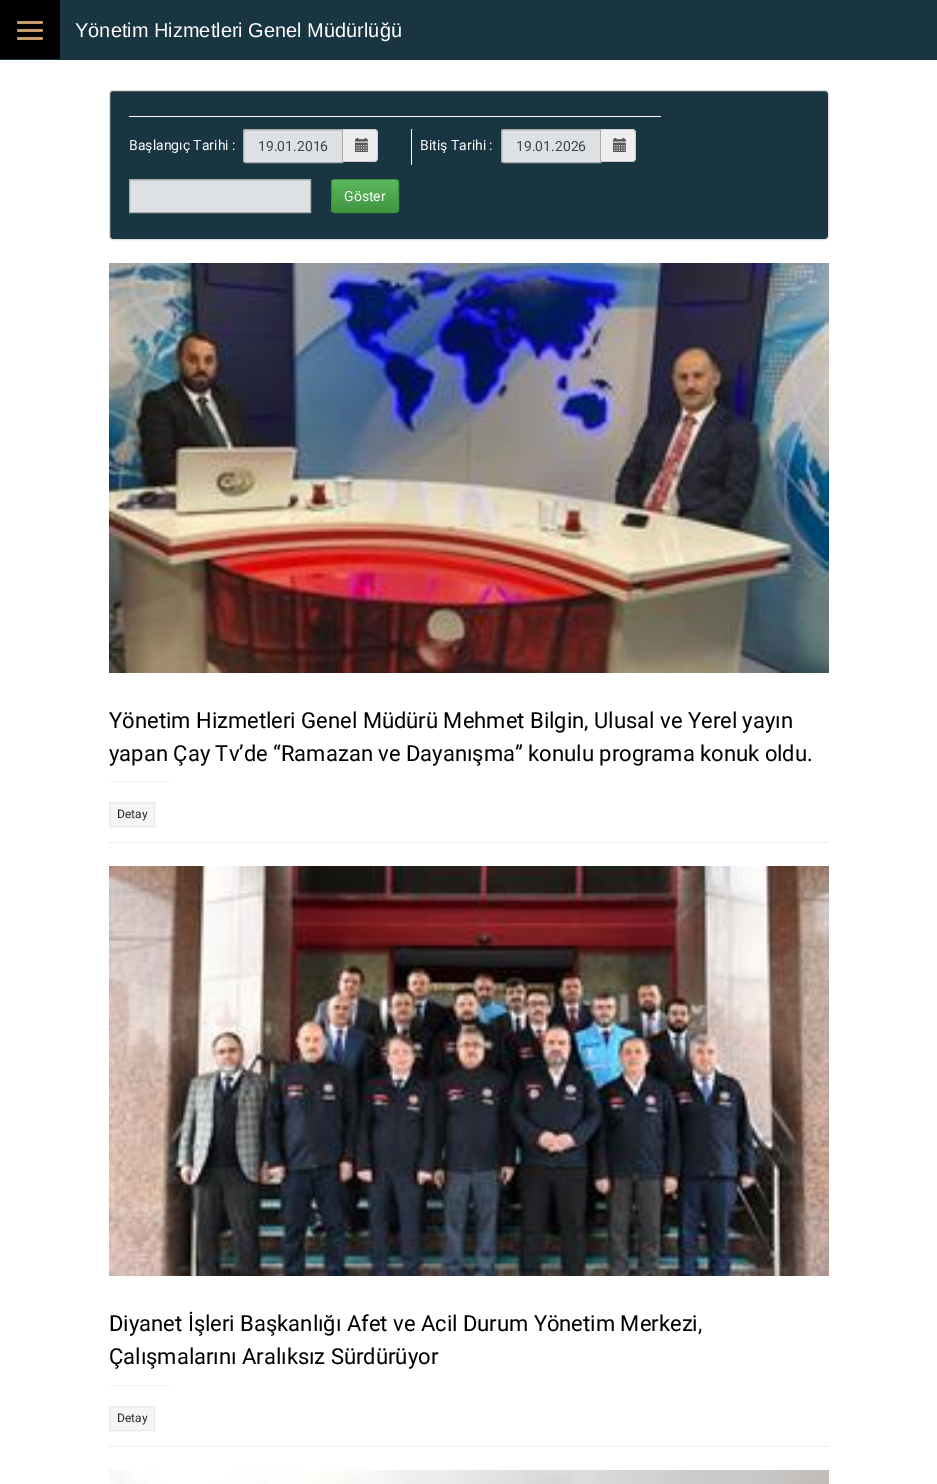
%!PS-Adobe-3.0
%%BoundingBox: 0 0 937 1484
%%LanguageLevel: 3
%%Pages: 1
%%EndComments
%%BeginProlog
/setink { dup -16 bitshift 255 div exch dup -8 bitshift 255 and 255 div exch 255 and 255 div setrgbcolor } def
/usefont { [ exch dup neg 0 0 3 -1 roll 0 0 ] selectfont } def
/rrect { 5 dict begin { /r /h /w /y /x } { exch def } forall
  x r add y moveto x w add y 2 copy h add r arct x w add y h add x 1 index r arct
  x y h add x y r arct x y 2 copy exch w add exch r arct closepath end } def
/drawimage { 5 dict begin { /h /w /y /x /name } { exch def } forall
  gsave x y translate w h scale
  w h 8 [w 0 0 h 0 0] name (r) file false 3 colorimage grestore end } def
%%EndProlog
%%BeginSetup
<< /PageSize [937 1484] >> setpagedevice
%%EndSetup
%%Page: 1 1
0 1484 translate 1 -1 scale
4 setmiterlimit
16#FFFFFF setink
0 0 937 1484 rectfill
16#193541 setink
0 0 937 60 rectfill
16#000000 setink
0 0 60 59 rectfill
16#C59B6A setink
17 21 26 3 1.5 rrect fill
17 29 26 3 1.5 rrect fill
17 37 26 3 1.5 rrect fill
/LiberationSans-Regular 20 usefont
16#FFFFFF setink
75 37 moveto (Yönetim Hizmetleri Genel Müdürlüğü) show
16#193541 setink
109.5 90.5 719 149 3.5 rrect gsave fill grestore
16#DCDCDC setink
stroke
16#FFFFFF setink
129 116 532 1 rectfill
/Roboto-Regular 14 usefont
129 150 moveto (Başlangıç Tarihi :) show
16#DDE1E3 setink
246 129 moveto 343 129 lineto 343 163 lineto 246 163 lineto 244.5 163 243 161.5 243 160 curveto 243 132 lineto 243 130.5 244.5 129 246 129 curveto closepath fill
16#CCD0D2 setink
246 131 moveto 342 131 lineto 342 130 lineto 246 130 lineto 245 130 244 131 244 132 curveto 244 133 lineto 244 132 245 131 246 131 curveto closepath fill
16#ABABAB setink
246 129.5 moveto 342.5 129.5 lineto 342.5 162.5 lineto 246 162.5 lineto 244.5 162.5 243.5 161.5 243.5 160 curveto 243.5 132 lineto 243.5 130.5 244.5 129.5 246 129.5 curveto closepath stroke
16#444444 setink
258 151 moveto (19.01.2016) show
16#EEEEEE setink
343 129 moveto 374 129 lineto 376 129 378 131 378 133 curveto 378 158 lineto 378 160 376 162 374 162 curveto 343 162 lineto closepath fill
16#CCCCCC setink
343 129 moveto 374 129 lineto 376 129 378 131 378 133 curveto 378 158 lineto 378 160 376 162 374 162 curveto 343 162 lineto closepath 343 130 moveto 374 130 lineto 375.5 130 377 131.5 377 133 curveto 377 158 lineto 377 159.5 375.5 161 374 161 curveto 343 161 lineto closepath eofill
(img1.raw) 355 138 13 14 drawimage
16#FFFFFF setink
411 129 1 36 rectfill
420 150 moveto (Bitiş Tarihi :) show
16#DDE1E3 setink
504 129 moveto 601 129 lineto 601 163 lineto 504 163 lineto 502.5 163 501 161.5 501 160 curveto 501 132 lineto 501 130.5 502.5 129 504 129 curveto closepath fill
16#CCD0D2 setink
504 131 moveto 600 131 lineto 600 130 lineto 504 130 lineto 503 130 502 131 502 132 curveto 502 133 lineto 502 132 503 131 504 131 curveto closepath fill
16#ABABAB setink
504 129.5 moveto 600.5 129.5 lineto 600.5 162.5 lineto 504 162.5 lineto 502.5 162.5 501.5 161.5 501.5 160 curveto 501.5 132 lineto 501.5 130.5 502.5 129.5 504 129.5 curveto closepath stroke
16#444444 setink
516 151 moveto (19.01.2026) show
16#EEEEEE setink
601 129 moveto 632 129 lineto 634 129 636 131 636 133 curveto 636 158 lineto 636 160 634 162 632 162 curveto 601 162 lineto closepath fill
16#CCCCCC setink
601 129 moveto 632 129 lineto 634 129 636 131 636 133 curveto 636 158 lineto 636 160 634 162 632 162 curveto 601 162 lineto closepath 601 130 moveto 632 130 lineto 633.5 130 635 131.5 635 133 curveto 635 158 lineto 635 159.5 633.5 161 632 161 curveto 601 161 lineto closepath eofill
(img1.raw) 613 138 13 14 drawimage
16#DDE1E3 setink
130 181 180 31 rectfill
16#CCD0D2 setink
130 180 180 1 rectfill
16#ABABAB setink
129.5 179.5 181 33 rectstroke
gsave
331 179 68 34 4 rrect clip newpath
gsave 331 180 moveto 399 180 lineto 399 212 lineto 331 212 lineto closepath clip newpath
<< /ShadingType 2 /ColorSpace /DeviceRGB /Coords [365 180 365 212] /Extend [true true] /Function << /FunctionType 2 /Domain [0 1] /C0 [0.361 0.722 0.361] /C1 [0.255 0.588 0.255] /N 1 >> >> shfill grestore
grestore
16#74C274 setink
335 181 moveto 395 181 lineto 397 181 398 182 398 184 curveto 398 177 389 180 385 180 curveto 345 180 lineto 341 180 332 177 332 184 curveto 332 182 333 181 335 181 curveto closepath fill
16#3E8F3E setink
331.5 179.5 67 33 3.5 rrect stroke
16#FFFFFF setink
344 201 moveto (Göster) show
16#EDEDED setink
109 842 720 1 rectfill
(img2.raw) 109 263 720 410 drawimage
/Roboto-Regular 22 usefont
16#000000 setink
109 728 moveto (Yönetim Hizmetleri Genel Müdürü Mehmet Bilgin, Ulusal ve Yerel yayın) show
109 761 moveto (yapan Çay Tv’de “Ramazan ve Dayanışma” konulu programa konuk oldu.) show
16#F0F0F0 setink
109 781 60 1 rectfill
16#F5F5F5 setink
109.5 802.5 moveto 154.5 802.5 lineto 154.5 826.5 lineto 109.5 826.5 lineto closepath gsave fill grestore
16#E9E9E9 setink
stroke
/Roboto-Regular 12 usefont
16#2B2B2B setink
117 818 moveto (Detay) show
16#EDEDED setink
109 1446 720 1 rectfill
(img3.raw) 109 866 720 410 drawimage
/Roboto-Regular 22 usefont
16#000000 setink
109 1331 moveto (Diyanet İşleri Başkanlığı Afet ve Acil Durum Yönetim Merkezi,) show
109 1364 moveto (Çalışmalarını Aralıksız Sürdürüyor) show
16#F0F0F0 setink
109 1385 60 1 rectfill
16#F5F5F5 setink
109.5 1406.5 moveto 154.5 1406.5 lineto 154.5 1430.5 lineto 109.5 1430.5 lineto closepath gsave fill grestore
16#E9E9E9 setink
stroke
/Roboto-Regular 12 usefont
16#2B2B2B setink
117 1422 moveto (Detay) show
(img4.raw) 109 1470 720 14 drawimage
showpage
%%EOF
